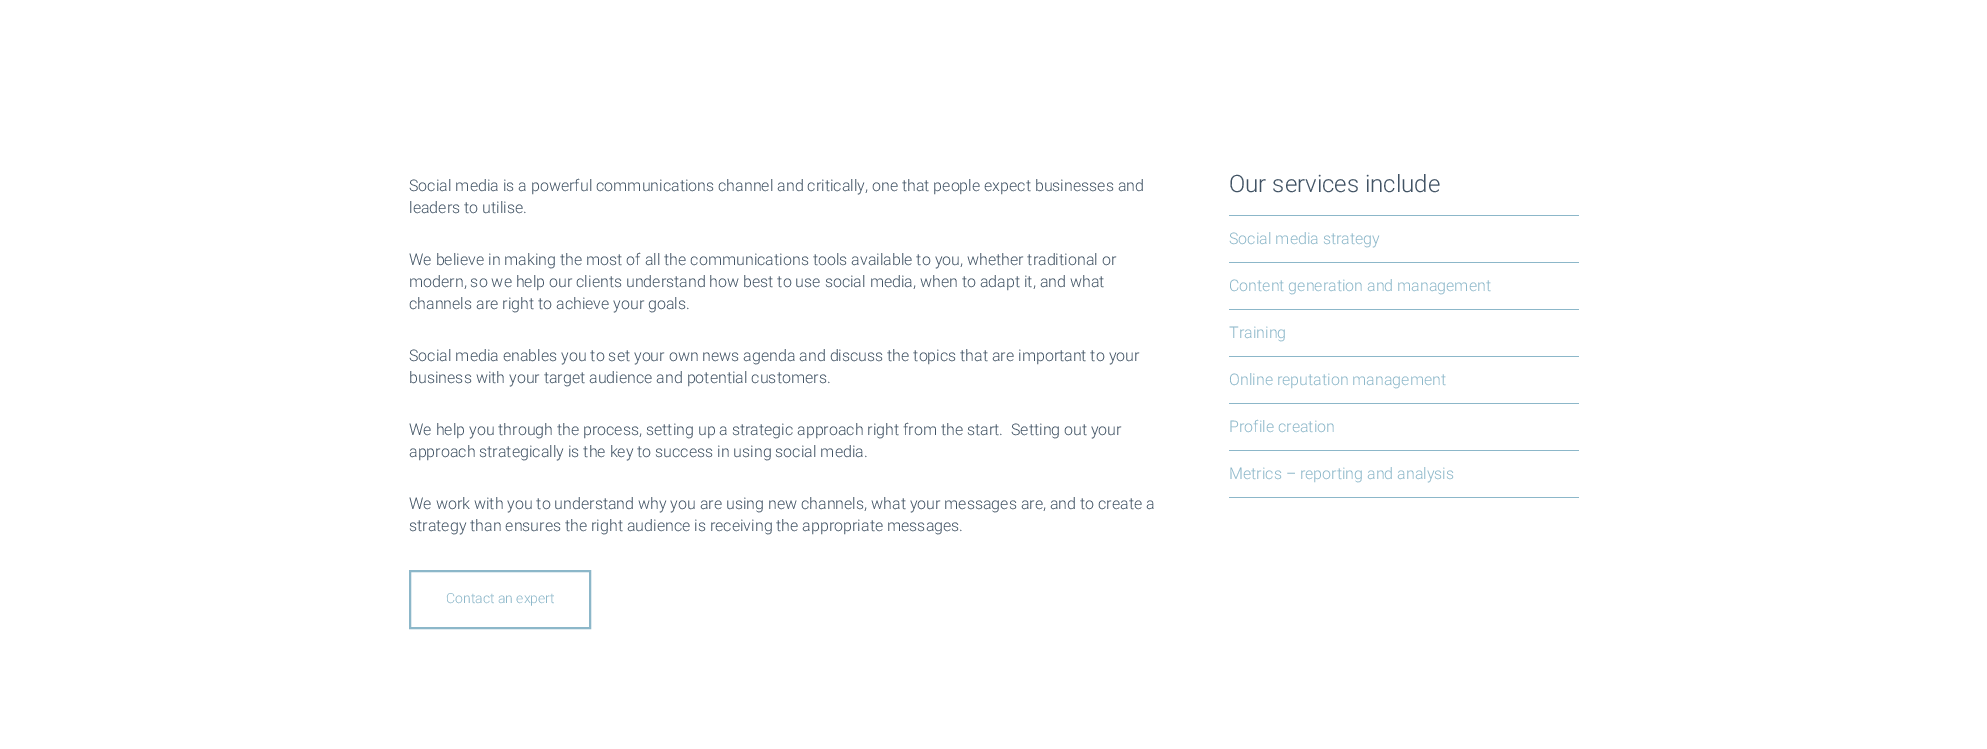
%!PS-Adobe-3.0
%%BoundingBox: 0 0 1987 749
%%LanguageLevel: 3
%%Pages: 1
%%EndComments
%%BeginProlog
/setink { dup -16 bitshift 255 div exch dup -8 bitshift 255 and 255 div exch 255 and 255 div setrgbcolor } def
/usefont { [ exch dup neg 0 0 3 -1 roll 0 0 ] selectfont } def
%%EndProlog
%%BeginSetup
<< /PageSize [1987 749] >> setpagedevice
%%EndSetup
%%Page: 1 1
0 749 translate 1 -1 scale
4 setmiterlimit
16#FFFFFF setink
0 0 1987 749 rectfill
/Roboto-Light 16 usefont
16#415364 setink
[
    [(Social media is a powerful communications channel and critically, one that people expect businesses and) 409 191]
    [(leaders to utilise.) 409 213]
    [(We believe in making the most of all the communications tools available to you, whether traditional or) 409 265]
    [(modern, so we help our clients understand how best to use social media, when to adapt it, and what) 409 287]
    [(channels are right to achieve your goals.) 409 309]
    [(Social media enables you to set your own news agenda and discuss the topics that are important to your) 409 361]
    [(business with your target audience and potential customers.) 409 383]
    [(We help you through the process, setting up a strategic approach right from the start.  Setting out your) 409 435]
    [(approach strategically is the key to success in using social media.) 409 457]
    [(We work with you to understand why you are using new channels, what your messages are, and to create a) 409 509]
    [(strategy than ensures the right audience is receiving the appropriate messages.) 409 531]
] { aload pop moveto show } forall
16#8CB7C9 setink
2 setlinewidth
410 571 180 57 rectstroke
/Roboto-Light 14 usefont
446 603 moveto (Contact an expert) show
/Roboto-Light 24 usefont
16#415364 setink
1229 192 moveto (Our services include) show
16#8CB7C9 setink
1229 215 350 1 rectfill
/Roboto-Light 16 usefont
1229 244 moveto (Social media strategy) show
1229 262 350 1 rectfill
1229 291 moveto (Content generation and management) show
1229 309 350 1 rectfill
1229 338 moveto (Training) show
1229 356 350 1 rectfill
1229 385 moveto (Online reputation management) show
1229 403 350 1 rectfill
1229 432 moveto (Profile creation) show
1229 450 350 1 rectfill
1229 479 moveto (Metrics – reporting and analysis) show
1229 497 350 1 rectfill
showpage
%%EOF
